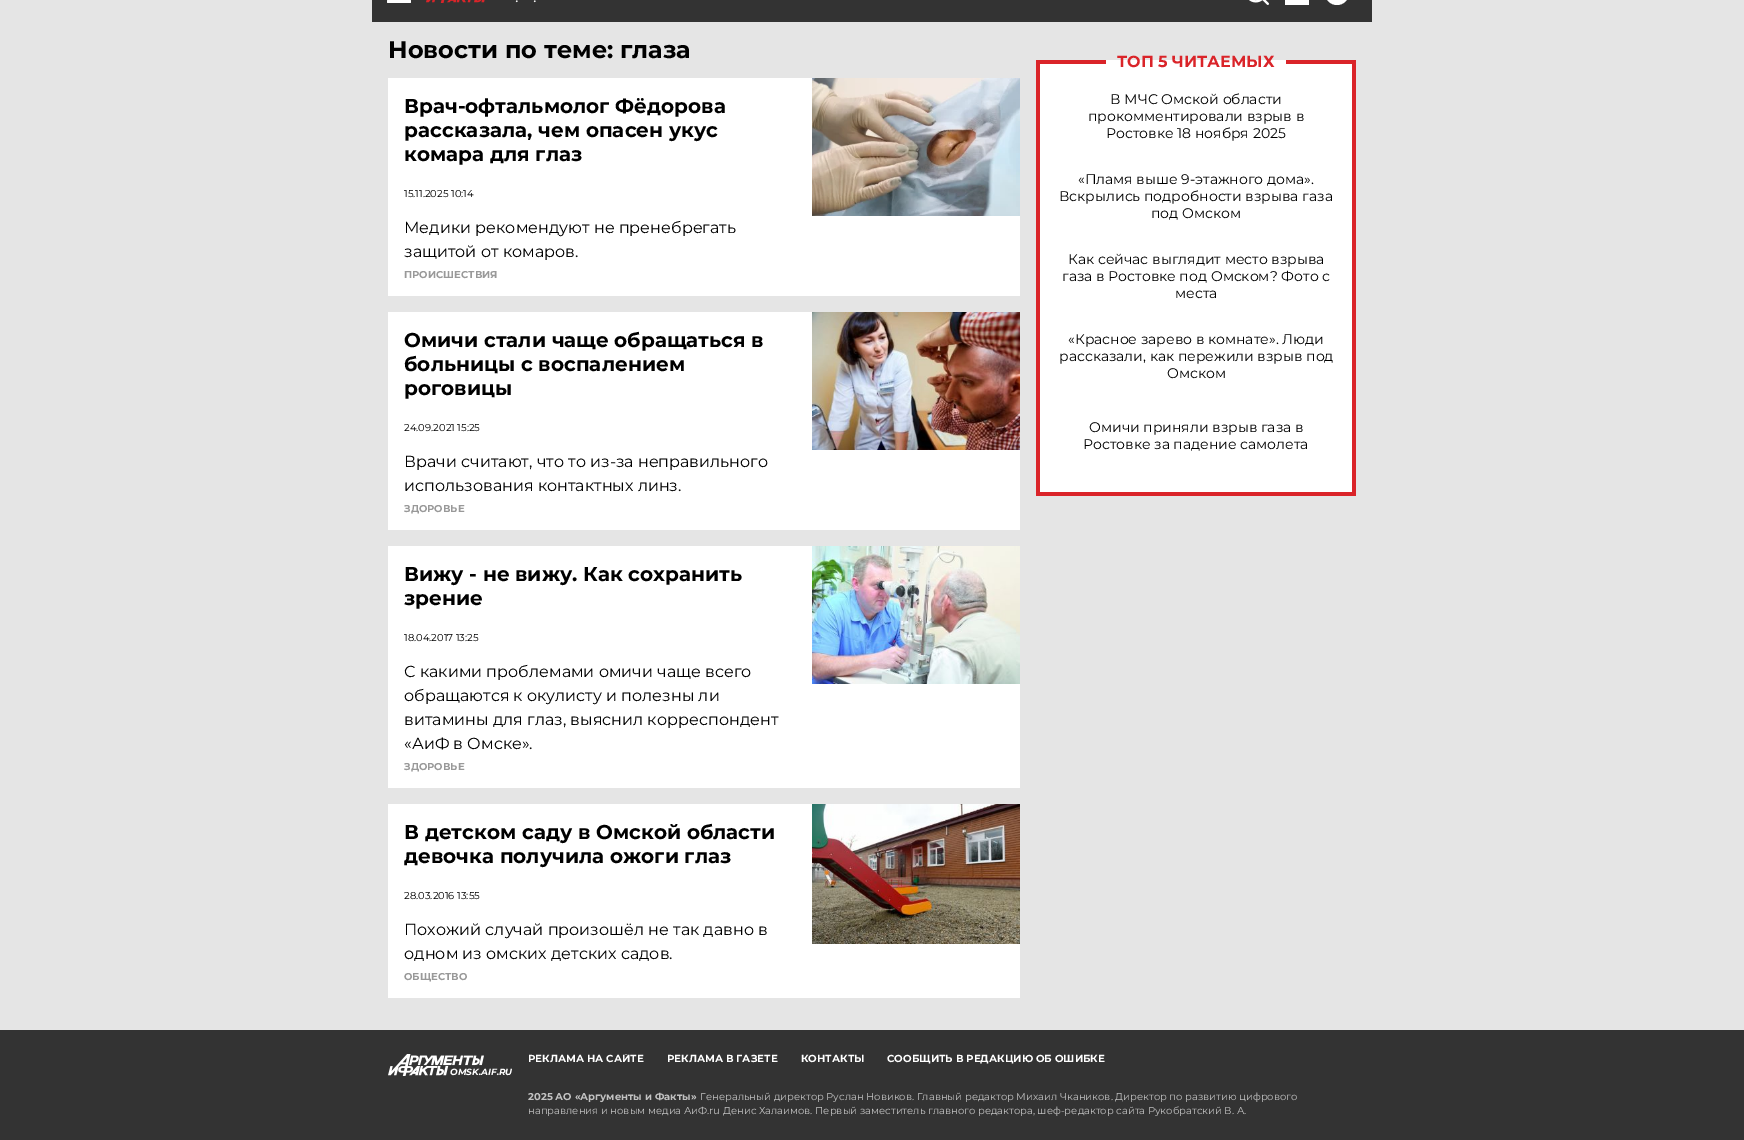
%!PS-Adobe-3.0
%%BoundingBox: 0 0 1744 1140
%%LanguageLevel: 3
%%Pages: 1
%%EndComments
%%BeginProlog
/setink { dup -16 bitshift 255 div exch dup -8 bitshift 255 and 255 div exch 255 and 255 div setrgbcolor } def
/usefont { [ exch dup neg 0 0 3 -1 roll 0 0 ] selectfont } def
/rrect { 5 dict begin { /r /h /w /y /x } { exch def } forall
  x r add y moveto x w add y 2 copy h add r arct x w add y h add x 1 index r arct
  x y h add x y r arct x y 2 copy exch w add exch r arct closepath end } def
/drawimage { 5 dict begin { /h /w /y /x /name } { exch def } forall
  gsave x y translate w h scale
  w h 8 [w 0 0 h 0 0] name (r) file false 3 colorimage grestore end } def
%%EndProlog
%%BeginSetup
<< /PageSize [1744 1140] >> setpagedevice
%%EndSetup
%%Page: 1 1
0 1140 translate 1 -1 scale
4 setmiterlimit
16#E5E5E5 setink
0 0 1744 1140 rectfill
16#333333 setink
372 0 1000 22 rectfill
16#FFFFFF setink
387 0 24 3 1 rrect fill
(img1.raw) 426 0 59 3 drawimage
/Montserrat-BoldItalic 9 usefont
516 2 moveto (.) show
534 2 moveto (.) show
(img2.raw) 1249 0 20 5 drawimage
1285 0 24 5 rectfill
1325 -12 24 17 12 rrect fill
/Montserrat-Bold 24 usefont
16#000000 setink
388 58 moveto (Новости по теме: глаза) show
16#FFFFFF setink
388 78 632 218 rectfill
/Montserrat-Bold 20 usefont
16#000000 setink
[
    [(Врач-офтальмолог Фёдорова) 404 113]
    [(рассказала, чем опасен укус) 404 137]
    [(комара для глаз) 404 161]
] { aload pop moveto show } forall
/Montserrat-Regular 10 usefont
404 197 moveto (15.11.2025 10:14) show
/Montserrat-Regular 16 usefont
404 233 moveto (Медики рекомендуют не пренебрегать) show
404 257 moveto (защитой от комаров.) show
(img3.raw) 812 78 208 138 drawimage
/Montserrat-Bold 10 usefont
16#999999 setink
404 278 moveto (ПРОИСШЕСТВИЯ) show
16#FFFFFF setink
388 312 632 218 rectfill
/Montserrat-Bold 20 usefont
16#000000 setink
[
    [(Омичи стали чаще обращаться в) 404 347]
    [(больницы с воспалением) 404 371]
    [(роговицы) 404 395]
] { aload pop moveto show } forall
/Montserrat-Regular 10 usefont
404 431 moveto (24.09.2021 15:25) show
/Montserrat-Regular 16 usefont
404 467 moveto (Врачи считают, что то из-за неправильного) show
404 491 moveto (использования контактных линз.) show
(img4.raw) 812 312 208 138 drawimage
/Montserrat-Bold 10 usefont
16#999999 setink
404 512 moveto (ЗДОРОВЬЕ) show
16#FFFFFF setink
388 546 632 242 rectfill
/Montserrat-Bold 20 usefont
16#000000 setink
404 581 moveto (Вижу - не вижу. Как сохранить) show
404 605 moveto (зрение) show
/Montserrat-Regular 10 usefont
404 641 moveto (18.04.2017 13:25) show
/Montserrat-Regular 16 usefont
[
    [(С какими проблемами омичи чаще всего) 404 677]
    [(обращаются к окулисту и полезны ли) 404 701]
    [(витамины для глаз, выяснил корреспондент) 404 725]
    [(«АиФ в Омске».) 404 749]
] { aload pop moveto show } forall
(img5.raw) 812 546 208 138 drawimage
/Montserrat-Bold 10 usefont
16#999999 setink
404 770 moveto (ЗДОРОВЬЕ) show
16#FFFFFF setink
388 804 632 194 rectfill
/Montserrat-Bold 20 usefont
16#000000 setink
404 839 moveto (В детском саду в Омской области) show
404 863 moveto (девочка получила ожоги глаз) show
/Montserrat-Regular 10 usefont
404 899 moveto (28.03.2016 13:55) show
/Montserrat-Regular 16 usefont
404 935 moveto (Похожий случай произошёл не так давно в) show
404 959 moveto (одном из омских детских садов.) show
(img6.raw) 812 804 208 140 drawimage
/Montserrat-Bold 10 usefont
16#999999 setink
404 980 moveto (ОБЩЕСТВО) show
[
    [1040 60 312 432 16#FFFFFF]
    [1352 60 4 436 16#DA2429]
    [1036 492 320 4 16#DA2429]
    [1036 60 4 436 16#DA2429]
    [1036 60 70 4 16#DA2429]
] { aload pop setink rectfill } forall
/Montserrat-Bold 16 usefont
1117 67 moveto (ТОП 5 ЧИТАЕМЫХ) show
1286 60 70 4 rectfill
/Montserrat-Regular 14 usefont
16#000000 setink
[
    [(В МЧС Омской области) 1110 104]
    [(прокомментировали взрыв в) 1088 121]
    [(Ростовке 18 ноября 2025) 1106 138]
    [(«Пламя выше 9-этажного дома».) 1078 184]
    [(Вскрылись подробности взрыва газа) 1059 201]
    [(под Омском) 1151 218]
    [(Как сейчас выглядит место взрыва) 1068 264]
    [(газа в Ростовке под Омском? Фото с) 1062 281]
    [(места) 1175 298]
    [(«Красное зарево в комнате». Люди) 1068 344]
    [(рассказали, как пережили взрыв под) 1059 361]
    [(Омском) 1167 378]
    [(Омичи приняли взрыв газа в) 1089 432]
    [(Ростовке за падение самолета) 1083 449]
] { aload pop moveto show } forall
16#333333 setink
0 1030 1744 110 rectfill
(img7.raw) 388 1054 96 22 drawimage
/Montserrat-BoldItalic 9 usefont
16#FFFFFF setink
450 1075 moveto (OMSK.AIF.RU) show
gsave
528 1054 828 20 rectclip
/Montserrat-Bold 10.2 usefont
528 1062 moveto (РЕКЛАМА НА САЙТЕ) show
grestore
/Montserrat-Bold 10.2 usefont
[
    [(РЕКЛАМА В ГАЗЕТЕ) 667 1062]
    [(КОНТАКТЫ) 801 1062]
    [(СООБЩИТЬ В РЕДАКЦИЮ ОБ ОШИБКЕ) 887 1062]
] { aload pop moveto show } forall
/Montserrat-Bold 10 usefont
16#C2C2C2 setink
528 1100 moveto (2025 АО «Аргументы и Факты») show
/Montserrat-Regular 10 usefont
700 1100 moveto (Генеральный директор Руслан Новиков. Главный редактор Михаил Чкаников. Директор по развитию цифрового) show
528 1114 moveto (направления и новым медиа АиФ.ru Денис Халаимов. Первый заместитель главного редактора, шеф-редактор сайта Рукобратский В. А.) show
showpage
%%EOF
